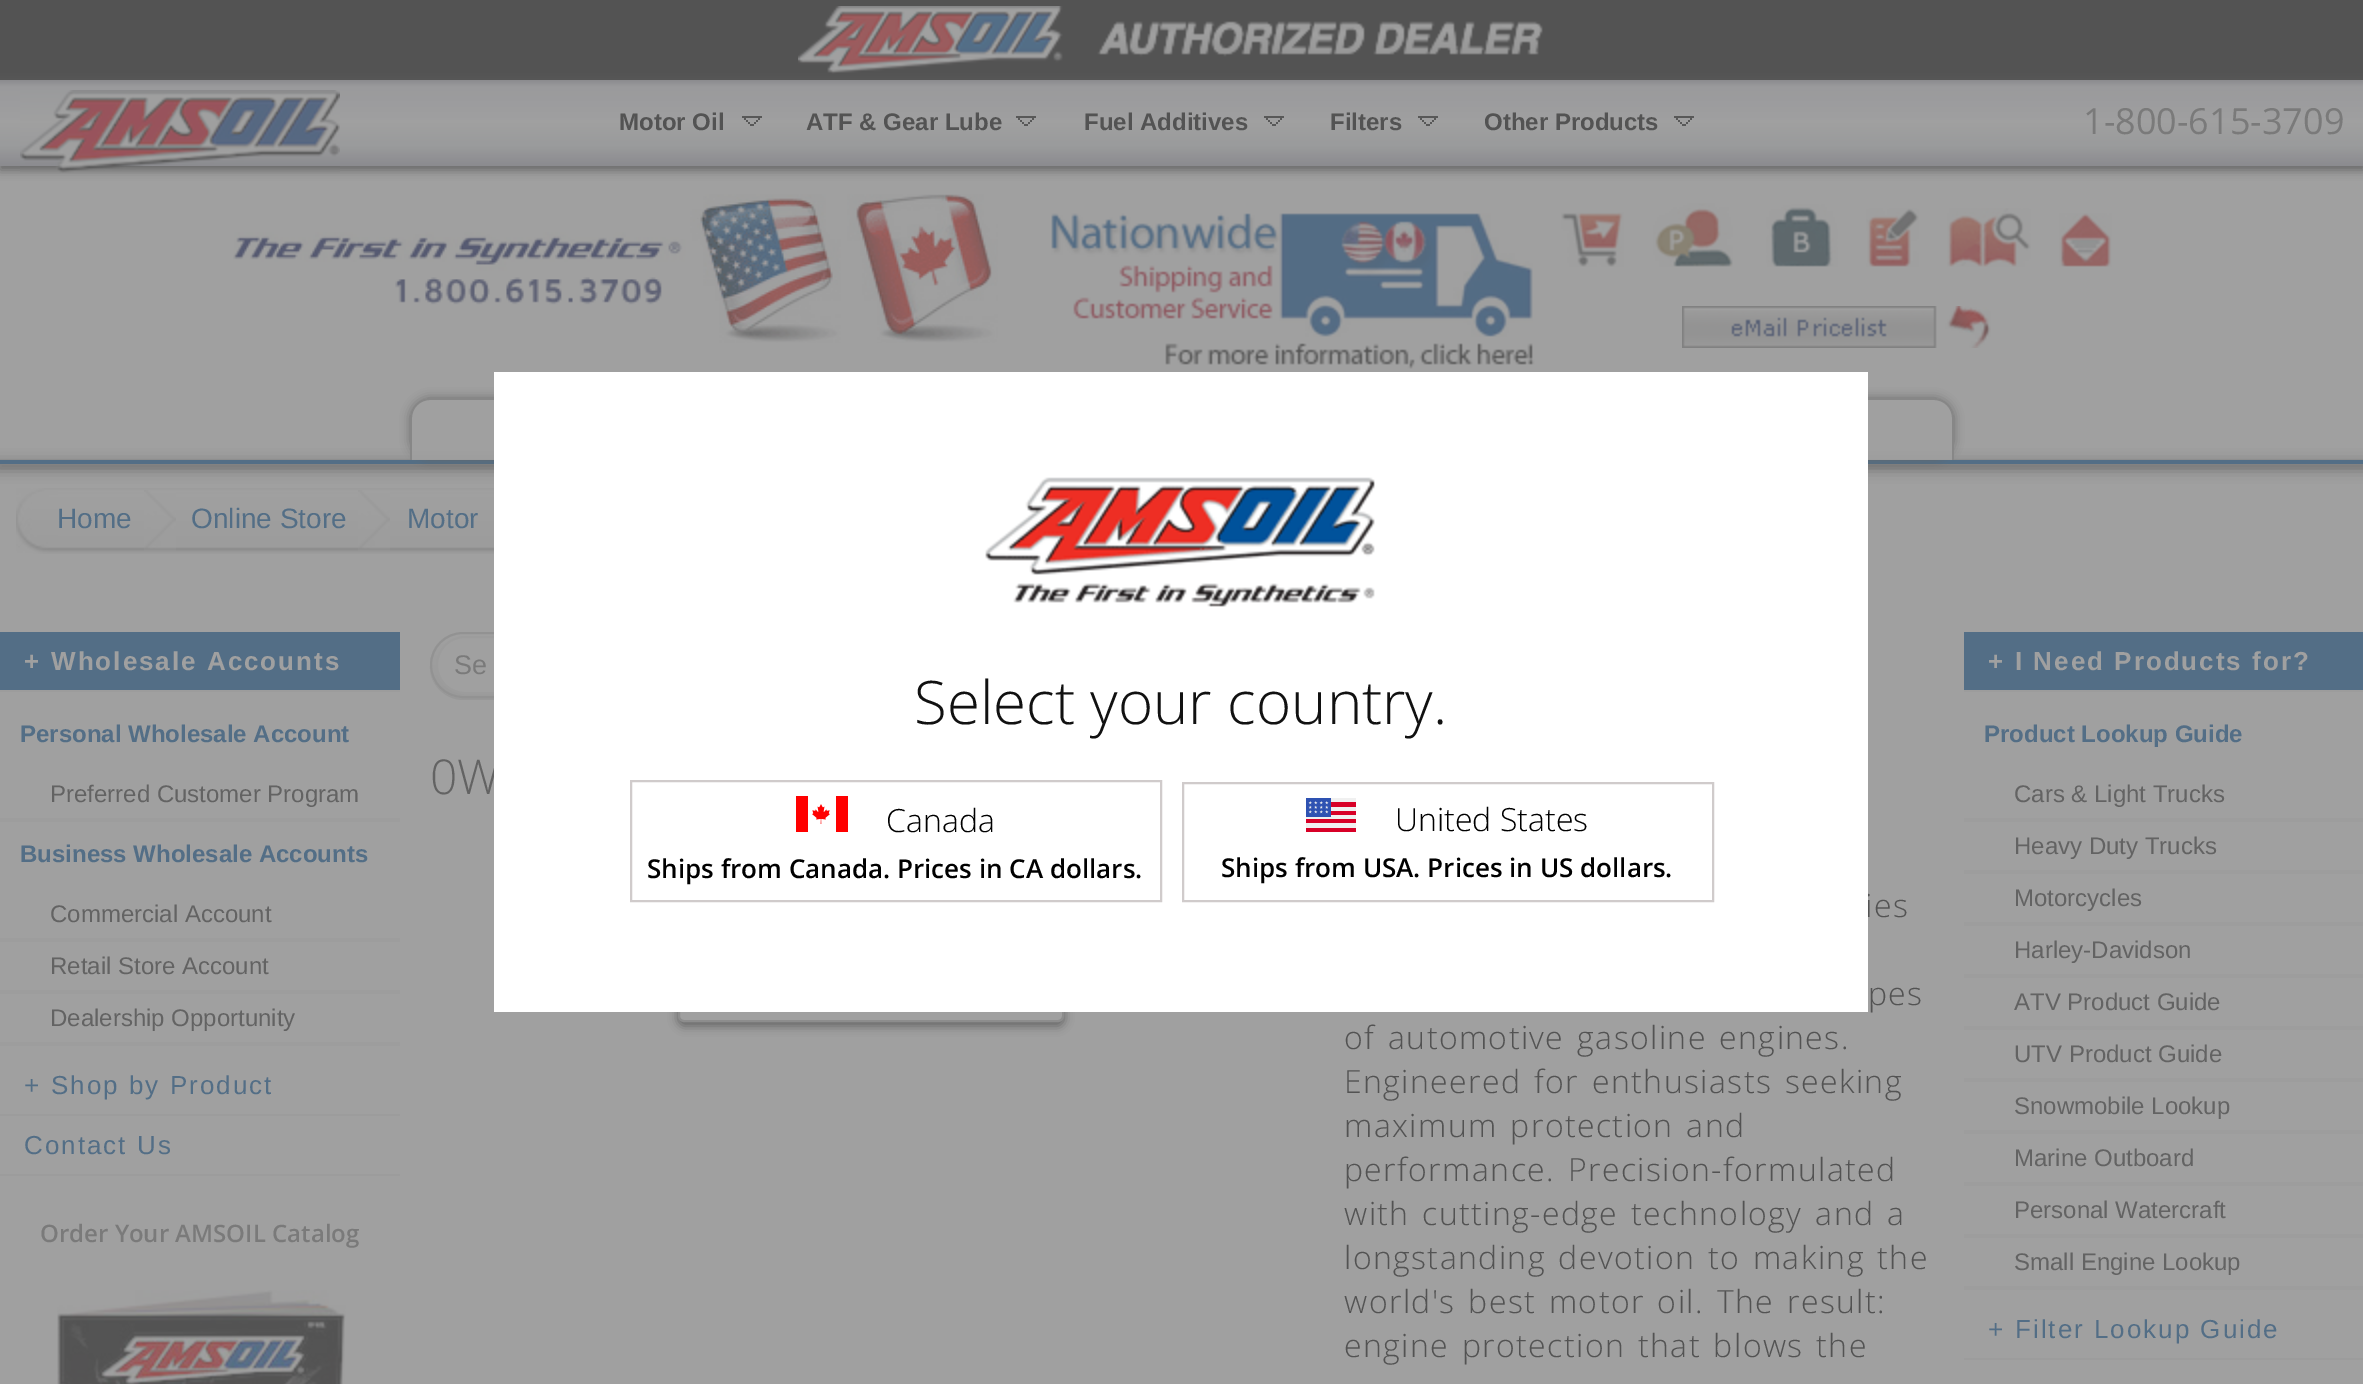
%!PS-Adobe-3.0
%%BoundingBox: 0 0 2363 1384
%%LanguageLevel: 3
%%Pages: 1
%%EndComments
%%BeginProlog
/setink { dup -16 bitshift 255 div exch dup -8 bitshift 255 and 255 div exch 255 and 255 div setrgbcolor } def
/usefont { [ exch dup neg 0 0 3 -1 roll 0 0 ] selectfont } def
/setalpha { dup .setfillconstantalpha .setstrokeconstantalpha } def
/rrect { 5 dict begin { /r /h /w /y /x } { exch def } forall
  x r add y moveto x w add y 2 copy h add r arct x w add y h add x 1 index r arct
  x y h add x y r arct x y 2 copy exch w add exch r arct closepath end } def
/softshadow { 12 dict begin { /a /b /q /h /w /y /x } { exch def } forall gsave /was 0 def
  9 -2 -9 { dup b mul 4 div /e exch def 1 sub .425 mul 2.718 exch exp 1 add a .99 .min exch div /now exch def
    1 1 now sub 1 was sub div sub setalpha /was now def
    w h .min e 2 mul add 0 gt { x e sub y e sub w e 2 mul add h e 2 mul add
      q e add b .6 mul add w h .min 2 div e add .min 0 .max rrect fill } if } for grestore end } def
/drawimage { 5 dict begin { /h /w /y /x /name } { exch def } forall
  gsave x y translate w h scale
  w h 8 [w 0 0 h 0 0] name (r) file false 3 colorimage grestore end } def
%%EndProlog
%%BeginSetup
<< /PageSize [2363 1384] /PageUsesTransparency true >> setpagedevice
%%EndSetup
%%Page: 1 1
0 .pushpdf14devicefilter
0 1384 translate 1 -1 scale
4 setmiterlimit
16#A0A0A0 setink
0 0 2363 1384 rectfill
16#535353 setink
0 0 2363 80 rectfill
(img1.raw) 798 6 745 68 drawimage
16#636363 setink
0 84 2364 86 0 5 1 softshadow
gsave 0 80 moveto 2363 80 lineto 2363 166 lineto 0 166 lineto closepath clip newpath
<< /ShadingType 2 /ColorSpace /DeviceRGB /Coords [1182 80 1182 166] /Extend [true true] /Function << /FunctionType 3 /Domain [0 1] /Functions [<< /FunctionType 2 /Domain [0 1] /C0 [0.545 0.545 0.561] /C1 [0.604 0.604 0.612] /N 1 >> << /FunctionType 2 /Domain [0 1] /C0 [0.604 0.604 0.612] /C1 [0.627 0.627 0.627] /N 1 >> << /FunctionType 2 /Domain [0 1] /C0 [0.627 0.627 0.627] /C1 [0.604 0.608 0.612] /N 1 >> << /FunctionType 2 /Domain [0 1] /C0 [0.604 0.608 0.612] /C1 [0.545 0.545 0.561] /N 1 >>] /Bounds [0.08 0.49 0.76] /Encode [0 1 0 1 0 1 0 1] >> >> shfill grestore
(img2.raw) 20 90 320 83 drawimage
/LiberationSans-Bold 24 usefont
16#535353 setink
619 130 moveto (Motor Oil) show
[
    [742 116 20 2 16#585858]
    [758 118 2 2 16#585858]
    [744 118 2 2 16#585858]
    [756 120 2 2 16#585858]
    [746 120 2 2 16#585858]
    [754 122 2 2 16#585858]
    [748 122 2 2 16#585858]
    [750 124 4 2 16#585858]
] { aload pop setink rectfill } forall
16#535353 setink
806 130 moveto (ATF & Gear Lube) show
[
    [1016 116 20 2 16#585858]
    [1032 118 2 2 16#585858]
    [1018 118 2 2 16#585858]
    [1030 120 2 2 16#585858]
    [1020 120 2 2 16#585858]
    [1028 122 2 2 16#585858]
    [1022 122 2 2 16#585858]
    [1024 124 4 2 16#585858]
] { aload pop setink rectfill } forall
16#535353 setink
1084 130 moveto (Fuel Additives) show
[
    [1264 116 20 2 16#585858]
    [1280 118 2 2 16#585858]
    [1266 118 2 2 16#585858]
    [1278 120 2 2 16#585858]
    [1268 120 2 2 16#585858]
    [1276 122 2 2 16#585858]
    [1270 122 2 2 16#585858]
    [1272 124 4 2 16#585858]
] { aload pop setink rectfill } forall
16#535353 setink
1330 130 moveto (Filters) show
[
    [1418 116 20 2 16#585858]
    [1434 118 2 2 16#585858]
    [1420 118 2 2 16#585858]
    [1432 120 2 2 16#585858]
    [1422 120 2 2 16#585858]
    [1430 122 2 2 16#585858]
    [1424 122 2 2 16#585858]
    [1426 124 4 2 16#585858]
] { aload pop setink rectfill } forall
16#535353 setink
1484 130 moveto (Other Products) show
[
    [1674 116 20 2 16#585858]
    [1690 118 2 2 16#585858]
    [1676 118 2 2 16#585858]
    [1688 120 2 2 16#585858]
    [1678 120 2 2 16#585858]
    [1686 122 2 2 16#585858]
    [1680 122 2 2 16#585858]
    [1682 124 4 2 16#585858]
] { aload pop setink rectfill } forall
/OpenSans-Regular 36 usefont
16#7A7A7A setink
2083 134 moveto (1-800-615-3709) show
(img3.raw) 233 194 765 149 drawimage
(img4.raw) 1051 213 484 156 drawimage
(img5.raw) 1561 212 63 55 drawimage
(img6.raw) 1653 203 80 64 drawimage
(img7.raw) 1766 204 72 63 drawimage
(img8.raw) 1866 208 53 59 drawimage
(img9.raw) 1947 208 84 59 drawimage
(img10.raw) 2059 213 53 54 drawimage
(img11.raw) 1682 306 309 42 drawimage
16#535353 setink
0 464 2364 4 0 7 0.8 softshadow
16#536E86 setink
0 460 2363 4 rectfill
gsave
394 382 moveto 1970 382 lineto 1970 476 lineto 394 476 lineto closepath 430 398 moveto 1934 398 lineto 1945 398 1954 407 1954 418 curveto 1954 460 lineto 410 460 lineto 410 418 lineto 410 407 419 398 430 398 curveto closepath eoclip newpath
16#636363 setink
410 398 1544 62 20 5 0.8 softshadow
grestore
0.8 setalpha
16#A0A0A0 setink
430 398 moveto 1934 398 lineto 1945 398 1954 407 1954 418 curveto 1954 460 lineto 410 460 lineto 410 418 lineto 410 407 419 398 430 398 curveto closepath fill
16#818181 setink
430 398 moveto 1934 398 lineto 1945 398 1954 407 1954 418 curveto 1954 460 lineto 410 460 lineto 410 418 lineto 410 407 419 398 430 398 curveto closepath 430 400 moveto 1934 400 lineto 1944 400 1952 408 1952 418 curveto 1952 460 lineto 412 460 lineto 412 418 lineto 412 408 420 400 430 400 curveto closepath eofill
1 setalpha
(img12.raw) 16 488 478 66 drawimage
(img13.raw) 144 490 32 61 drawimage
/LiberationSans-Regular 28 usefont
16#536E86 setink
57 528 moveto (Home) show
(img13.raw) 358 490 32 61 drawimage
191 528 moveto (Online Store) show
407 528 moveto (Motor) show
0 632 400 58 rectfill
16#9C9C9C setink
0 690 400 2 rectfill
/LiberationSans-Bold 26 usefont
16#A0A0A0 setink
24 670 moveto 2 0 (+) ashow
51 670 moveto 2 0 (Wholesale Accounts) ashow
/LiberationSans-Bold 24 usefont
16#536E86 setink
20 742 moveto (Personal Wholesale Account) show
16#9D9D9D setink
0 818 400 4 rectfill
/LiberationSans-Regular 24 usefont
16#636363 setink
50 802 moveto (Preferred Customer Program) show
/LiberationSans-Bold 24 usefont
16#536E86 setink
20 862 moveto (Business Wholesale Accounts) show
16#9D9D9D setink
0 938 400 4 rectfill
/LiberationSans-Regular 24 usefont
16#636363 setink
50 922 moveto (Commercial Account) show
16#9D9D9D setink
0 990 400 4 rectfill
16#636363 setink
50 974 moveto (Retail Store Account) show
16#9D9D9D setink
0 1042 400 4 rectfill
16#636363 setink
50 1026 moveto (Dealership Opportunity) show
16#9C9C9C setink
0 1114 400 2 rectfill
/LiberationSans-Regular 26 usefont
16#536E86 setink
24 1094 moveto 2 0 (+) ashow
51 1094 moveto 2 0 (Shop by Product) ashow
16#9C9C9C setink
0 1174 400 2 rectfill
16#536E86 setink
24 1154 moveto 2 0 (Contact Us) ashow
/OpenSans-SemiBold 24 usefont
16#7A7A7A setink
40 1242 moveto (Order Your AMSOIL Catalog) show
(img14.raw) 57 1290 289 94 drawimage
16#989898 setink
430 666 moveto 429 684 445 700 463 700 curveto 1221 700 lineto 1239 700 1255 684 1254 666 curveto 1253 684 1239 698 1221 698 curveto 463 698 lineto 445 698 431 684 430 666 curveto closepath fill
gsave
430 632 824 66 33 rrect clip newpath
gsave 430 634 moveto 494 634 lineto 494 696 lineto 430 696 lineto closepath clip newpath
<< /ShadingType 2 /ColorSpace /DeviceRGB /Coords [432 634 432 696] /Extend [true true] /Function << /FunctionType 2 /Domain [0 1] /C0 [0.627 0.627 0.627] /C1 [0.604 0.604 0.604] /N 1 >> >> shfill grestore
grestore
16#929292 setink
2 setlinewidth
431 633 822 64 32 rrect stroke
16#A0A0A0 setink
437 637 730 56 28 rrect gsave fill grestore
16#9C9C9C setink
stroke
/LiberationSans-Regular 27 usefont
16#7A7A7A setink
454 674 moveto (Se) show
/OpenSans-Light 48 usefont
16#636363 setink
430 794 moveto (0W) show
678 916 386 110 6 5 1 softshadow
16#A0A0A0 setink
679 913 384 108 5 rrect gsave fill grestore
16#8D8D8D setink
stroke
/OpenSans-Light 32 usefont
16#535353 setink
1865 917 moveto 3 0 32 1.4 0 (ies) awidthshow
1868 1005 moveto 3 0 32 1.4 0 (pes) awidthshow
1344 1049 moveto 3 0 32 1.4 0 (of automotive gasoline engines.) awidthshow
1344 1093 moveto 3 0 32 1.4 0 (Engineered for enthusiasts seeking) awidthshow
1344 1137 moveto 3 0 32 1.4 0 (maximum protection and) awidthshow
1344 1181 moveto 3 0 32 1.4 0 (performance. Precision-formulated) awidthshow
1344 1225 moveto 3 0 32 1.4 0 (with cutting-edge technology and a) awidthshow
1344 1269 moveto 3 0 32 1.4 0 (longstanding devotion to making the) awidthshow
1344 1313 moveto 3 0 32 1.4 0 (world's best motor oil. The result:) awidthshow
1344 1357 moveto 3 0 32 1.4 0 (engine protection that blows the) awidthshow
16#536E86 setink
1964 632 399 58 rectfill
16#9C9C9C setink
1964 690 399 2 rectfill
/LiberationSans-Bold 26 usefont
16#A0A0A0 setink
1988 670 moveto 2 0 (+) ashow
2015 670 moveto 2 0 (I Need Products for?) ashow
/LiberationSans-Bold 24 usefont
16#536E86 setink
1984 742 moveto (Product Lookup Guide) show
16#9D9D9D setink
1964 818 399 4 rectfill
/LiberationSans-Regular 24 usefont
16#636363 setink
2014 802 moveto (Cars & Light Trucks) show
16#9D9D9D setink
1964 870 399 4 rectfill
16#636363 setink
2014 854 moveto (Heavy Duty Trucks) show
16#9D9D9D setink
1964 922 399 4 rectfill
16#636363 setink
2014 906 moveto (Motorcycles) show
16#9D9D9D setink
1964 974 399 4 rectfill
16#636363 setink
2014 958 moveto (Harley-Davidson) show
16#9D9D9D setink
1964 1026 399 4 rectfill
16#636363 setink
2014 1010 moveto (ATV Product Guide) show
16#9D9D9D setink
1964 1078 399 4 rectfill
16#636363 setink
2014 1062 moveto (UTV Product Guide) show
16#9D9D9D setink
1964 1130 399 4 rectfill
16#636363 setink
2014 1114 moveto (Snowmobile Lookup) show
16#9D9D9D setink
1964 1182 399 4 rectfill
16#636363 setink
2014 1166 moveto (Marine Outboard) show
16#9D9D9D setink
1964 1234 399 4 rectfill
16#636363 setink
2014 1218 moveto (Personal Watercraft) show
16#9D9D9D setink
1964 1286 399 4 rectfill
16#636363 setink
2014 1270 moveto (Small Engine Lookup) show
16#9C9C9C setink
1964 1358 399 2 rectfill
/LiberationSans-Regular 26 usefont
16#536E86 setink
1988 1338 moveto 2 0 (+) ashow
2015 1338 moveto 2 0 (Filter Lookup Guide) ashow
16#FFFFFF setink
494 372 1374 640 rectfill
(img15.raw) 985 477 390 130 drawimage
/OpenSans-Light 60 usefont
16#111111 setink
914 724 moveto (Select your country.) show
16#D0CBCB setink
631 781 530 120 rectstroke
(img16.raw) 796 796 52 36 drawimage
/OpenSans-Light 32 usefont
16#000000 setink
886 832 moveto (Canada) show
/OpenSans-SemiBold 26 usefont
647 878 moveto (Ships from Canada. Prices in CA dollars.) show
16#D0CBCB setink
1183 783 530 118 rectstroke
(img17.raw) 1306 798 50 34 drawimage
/OpenSans-Light 32 usefont
16#000000 setink
1395 831 moveto (United States) show
/OpenSans-SemiBold 26 usefont
1221 877 moveto (Ships from USA. Prices in US dollars.) show
.poppdf14devicefilter showpage
%%EOF
